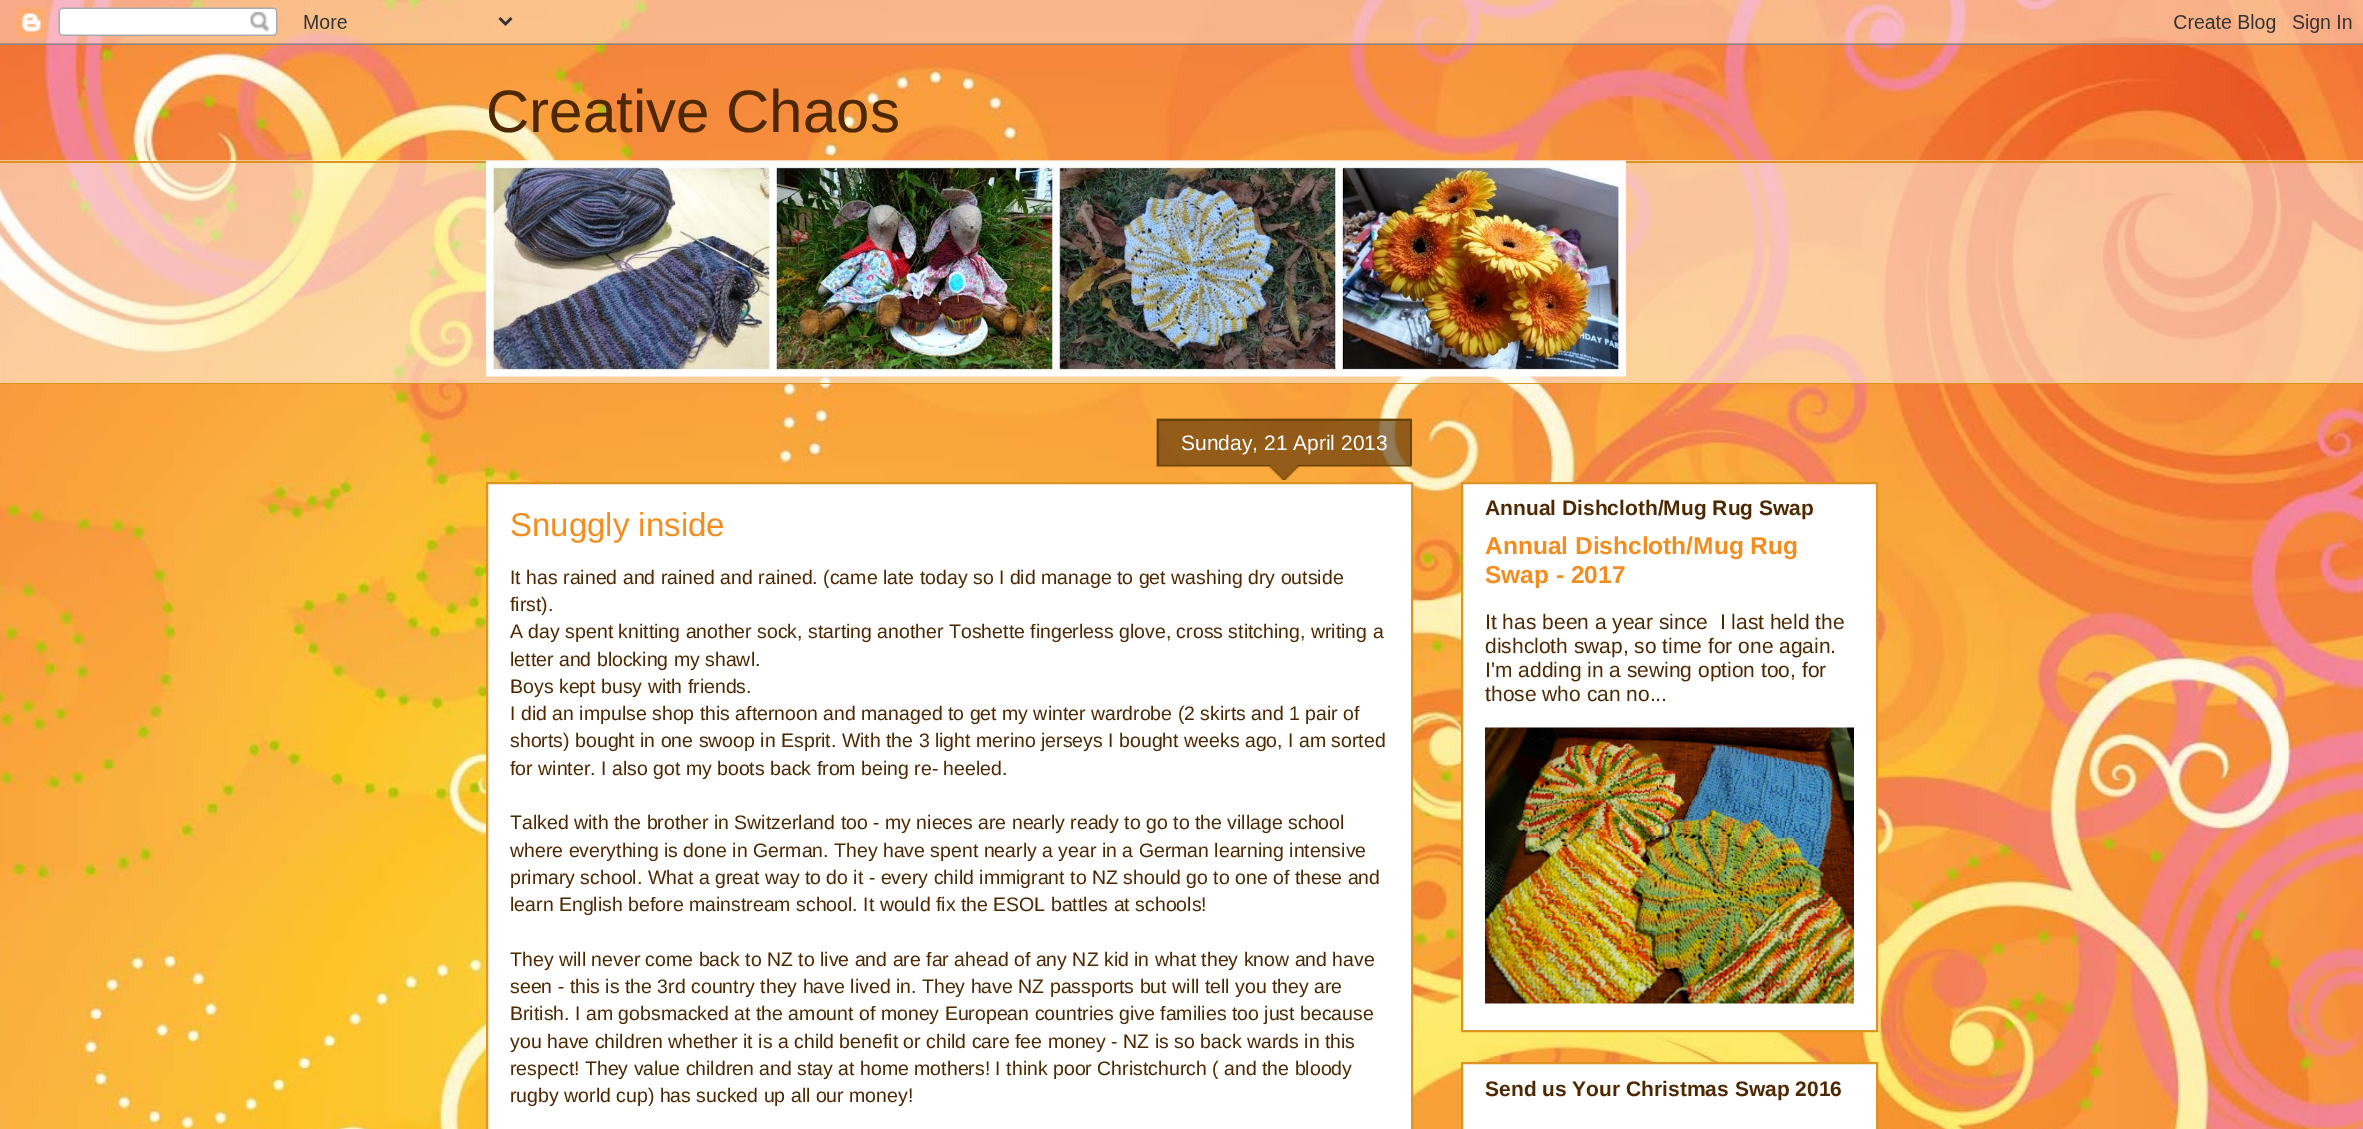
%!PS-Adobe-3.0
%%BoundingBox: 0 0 2363 1129
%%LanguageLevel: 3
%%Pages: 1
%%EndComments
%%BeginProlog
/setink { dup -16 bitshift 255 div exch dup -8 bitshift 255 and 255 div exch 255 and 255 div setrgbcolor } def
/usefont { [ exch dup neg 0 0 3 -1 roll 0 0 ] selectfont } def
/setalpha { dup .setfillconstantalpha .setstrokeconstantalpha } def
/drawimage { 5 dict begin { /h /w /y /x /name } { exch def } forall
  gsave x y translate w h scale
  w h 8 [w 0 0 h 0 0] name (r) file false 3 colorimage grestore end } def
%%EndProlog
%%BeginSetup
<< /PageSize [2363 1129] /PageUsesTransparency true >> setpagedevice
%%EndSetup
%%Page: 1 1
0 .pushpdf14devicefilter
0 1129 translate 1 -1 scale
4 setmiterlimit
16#FFFFFF setink
0 0 2363 1129 rectfill
(img1.raw) 0 0 2363 1129 drawimage
(img2.raw) 0 0 2363 45 drawimage
/LiberationSans-Regular 60 usefont
16#4E2800 setink
486 132 moveto (Creative Chaos) show
0.49 setalpha
16#FFFFFF setink
0 160 2363 223 rectfill
1 setalpha
16#DC9522 setink
0 161 2363 2 rectfill
(img3.raw) 486 160 1140 217 drawimage
0 383 2363 1 rectfill
16#FFFFFF setink
487 483 moveto 1412 483 lineto 1412 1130 lineto 487 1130 lineto closepath gsave fill grestore
16#DC9522 setink
2 setlinewidth
stroke
(img4.raw) 1156 418 256 62 drawimage
[
    [1157 419 255 2 16#664400]
    [1410 420 2 45 16#664400]
    [1157 420 2 45 16#664400]
] { aload pop setink rectfill } forall
/LiberationSans-Regular 21 usefont
16#FFFFFF setink
1181 450 moveto (Sunday, 21 April 2013) show
/LiberationSans-Regular 33 usefont
16#F48D1D setink
510 536 moveto (Snuggly inside) show
/LiberationSans-Regular 19.5 usefont
16#4E2800 setink
[
    [(It has rained and rained and rained. \(came late today so I did manage to get washing dry outside) 510 584]
    [(first\).) 510 611]
    [(A day spent knitting another sock, starting another Toshette fingerless glove, cross stitching, writing a) 510 638]
    [(letter and blocking my shawl.) 510 666]
    [(Boys kept busy with friends.) 510 693]
    [(I did an impulse shop this afternoon and managed to get my winter wardrobe \(2 skirts and 1 pair of) 510 720]
    [(shorts\) bought in one swoop in Esprit. With the 3 light merino jerseys I bought weeks ago, I am sorted) 510 747]
    [(for winter. I also got my boots back from being re- heeled.) 510 775]
    [(Talked with the brother in Switzerland too - my nieces are nearly ready to go to the village school) 510 829]
    [(where everything is done in German. They have spent nearly a year in a German learning intensive) 510 857]
    [(primary school. What a great way to do it - every child immigrant to NZ should go to one of these and) 510 884]
    [(learn English before mainstream school. It would fix the ESOL battles at schools!) 510 911]
    [(They will never come back to NZ to live and are far ahead of any NZ kid in what they know and have) 510 966]
    [(seen - this is the 3rd country they have lived in. They have NZ passports but will tell you they are) 510 993]
    [(British. I am gobsmacked at the amount of money European countries give families too just because) 510 1020]
    [(you have children whether it is a child benefit or child care fee money - NZ is so back wards in this) 510 1048]
    [(respect! They value children and stay at home mothers! I think poor Christchurch \( and the bloody) 510 1075]
    [(rugby world cup\) has sucked up all our money!) 510 1102]
] { aload pop moveto show } forall
16#FFFFFF setink
1462 483 moveto 1877 483 lineto 1877 1031 lineto 1462 1031 lineto closepath gsave fill grestore
16#DC9522 setink
stroke
/LiberationSans-Bold 21 usefont
16#4E2800 setink
1485 515 moveto (Annual Dishcloth/Mug Rug Swap) show
/LiberationSans-Bold 24.5 usefont
16#F48D1D setink
1485 554 moveto (Annual Dishcloth/Mug Rug) show
1485 583 moveto (Swap - 2017) show
/LiberationSans-Regular 21 usefont
16#4E2800 setink
[
    [(It has been a year since  I last held the) 1485 629]
    [(dishcloth swap, so time for one again.) 1485 653]
    [(I'm adding in a sewing option too, for) 1485 677]
    [(those who can no...) 1485 701]
] { aload pop moveto show } forall
(img5.raw) 1485 727 369 277 drawimage
16#FFFFFF setink
1462 1063 moveto 1877 1063 lineto 1877 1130 lineto 1462 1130 lineto closepath gsave fill grestore
16#DC9522 setink
stroke
/LiberationSans-Bold 21 usefont
16#4E2800 setink
1485 1096 moveto (Send us Your Christmas Swap 2016) show
.poppdf14devicefilter showpage
%%EOF
